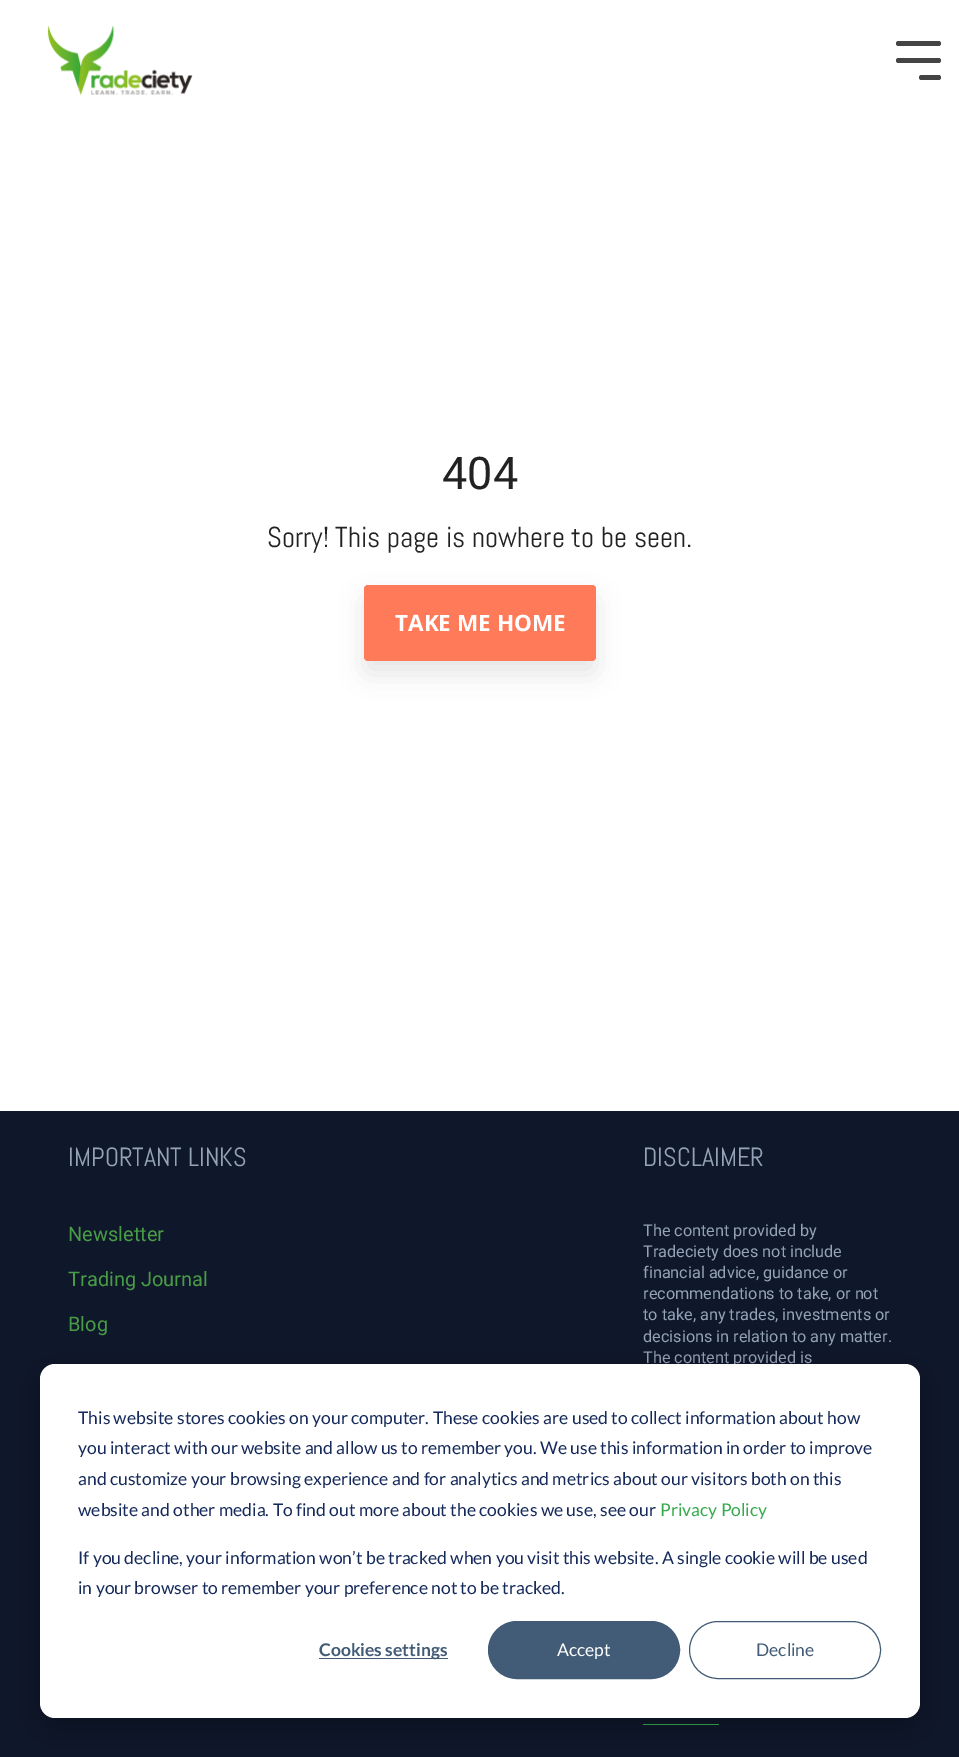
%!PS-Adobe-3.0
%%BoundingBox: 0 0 959 1757
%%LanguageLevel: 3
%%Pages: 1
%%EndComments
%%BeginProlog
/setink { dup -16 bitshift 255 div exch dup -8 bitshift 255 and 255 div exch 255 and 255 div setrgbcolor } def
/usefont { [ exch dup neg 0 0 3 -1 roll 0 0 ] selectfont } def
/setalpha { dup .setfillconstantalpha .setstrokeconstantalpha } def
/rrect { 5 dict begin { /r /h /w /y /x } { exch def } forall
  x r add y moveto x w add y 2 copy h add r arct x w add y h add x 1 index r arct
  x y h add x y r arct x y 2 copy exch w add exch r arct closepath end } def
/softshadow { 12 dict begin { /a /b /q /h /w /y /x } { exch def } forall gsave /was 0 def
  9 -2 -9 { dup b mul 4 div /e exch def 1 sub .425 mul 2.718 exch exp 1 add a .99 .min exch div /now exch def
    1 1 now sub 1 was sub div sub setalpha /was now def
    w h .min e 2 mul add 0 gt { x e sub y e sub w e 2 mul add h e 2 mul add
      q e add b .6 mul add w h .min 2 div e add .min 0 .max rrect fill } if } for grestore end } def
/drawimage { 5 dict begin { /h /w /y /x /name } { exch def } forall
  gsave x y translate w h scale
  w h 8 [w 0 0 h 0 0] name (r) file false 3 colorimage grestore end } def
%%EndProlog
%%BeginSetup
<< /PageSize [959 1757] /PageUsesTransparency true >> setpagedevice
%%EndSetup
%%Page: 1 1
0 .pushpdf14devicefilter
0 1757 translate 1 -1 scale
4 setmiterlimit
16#FFFFFF setink
0 0 959 1757 rectfill
(img1.raw) 47 25 146 70 drawimage
16#444444 setink
896 41 45 5 2.5 rrect fill
896 58 45 5 2.5 rrect fill
919 75 22 5 2.5 rrect fill
/Roboto-Regular 45 usefont
16#222222 setink
442 489 moveto (404) show
/Abel-Regular 28.75 usefont
267 547 moveto (Sorry! This page is nowhere to be seen.) show
16#000000 setink
364 598 232 76 4 12.5 0.1 softshadow
16#FF7A59 setink
364 585 232 76 4 rrect fill
/OpenSans-Bold 22.5 usefont
16#FFFFFF setink
395 631 moveto (TAKE ME HOME) show
16#0F172A setink
0 1111 959 646 rectfill
/Abel-Regular 26.25 usefont
16#94A3B8 setink
68 1166 moveto (IMPORTANT LINKS) show
/Roboto-Regular 20 usefont
16#499C46 setink
[
    [(Newsletter) 68 1241]
    [(Trading Journal) 68 1286]
    [(Blog) 68 1331]
] { aload pop moveto show } forall
/Abel-Regular 26.25 usefont
16#94A3B8 setink
643 1166 moveto (DISCLAIMER) show
/Roboto-Regular 16.25 usefont
[
    [(The content provided by) 643 1236]
    [(Tradeciety does not include) 643 1257]
    [(financial advice, guidance or) 643 1278]
    [(recommendations to take, or not) 643 1299]
    [(to take, any trades, investments or) 643 1320]
    [(decisions in relation to any matter.) 643 1342]
    [(The content provided is) 643 1363]
] { aload pop moveto show } forall
16#35A94C setink
643 1724 76 1 rectfill
16#000000 setink
40 1374 880 354 15 17.5 0.28 softshadow
16#FFFFFF setink
40 1364 880 354 15 rrect fill
/Lato-Regular 17.5 usefont
16#15295A setink
[
    [(This website stores cookies on your computer. These cookies are used to collect information about how) 78 1424]
    [(you interact with our website and allow us to remember you. We use this information in order to improve) 78 1454]
    [(and customize your browsing experience and for analytics and metrics about our visitors both on this) 78 1485]
    [(website and other media. To find out more about the cookies we use, see our) 78 1516]
] { aload pop moveto show } forall
16#35A94C setink
660 1516 moveto (Privacy Policy) show
16#15295A setink
78 1564 moveto (If you decline, your information won’t be tracked when you visit this website. A single cookie will be used) show
78 1594 moveto (in your browser to remember your preference not to be tracked.) show
16#425B76 setink
319 1658 129 1 rectfill
/Lato-Bold 17.5 usefont
319 1656 moveto (Cookies settings) show
488.5 1621.5 191 57 28.5 rrect gsave fill grestore
stroke
/Lato-Regular 17.5 usefont
16#FFFFFF setink
557 1656 moveto (Accept) show
16#425B76 setink
689.5 1621.5 191 57 28.5 rrect stroke
756 1656 moveto (Decline) show
.poppdf14devicefilter showpage
%%EOF
